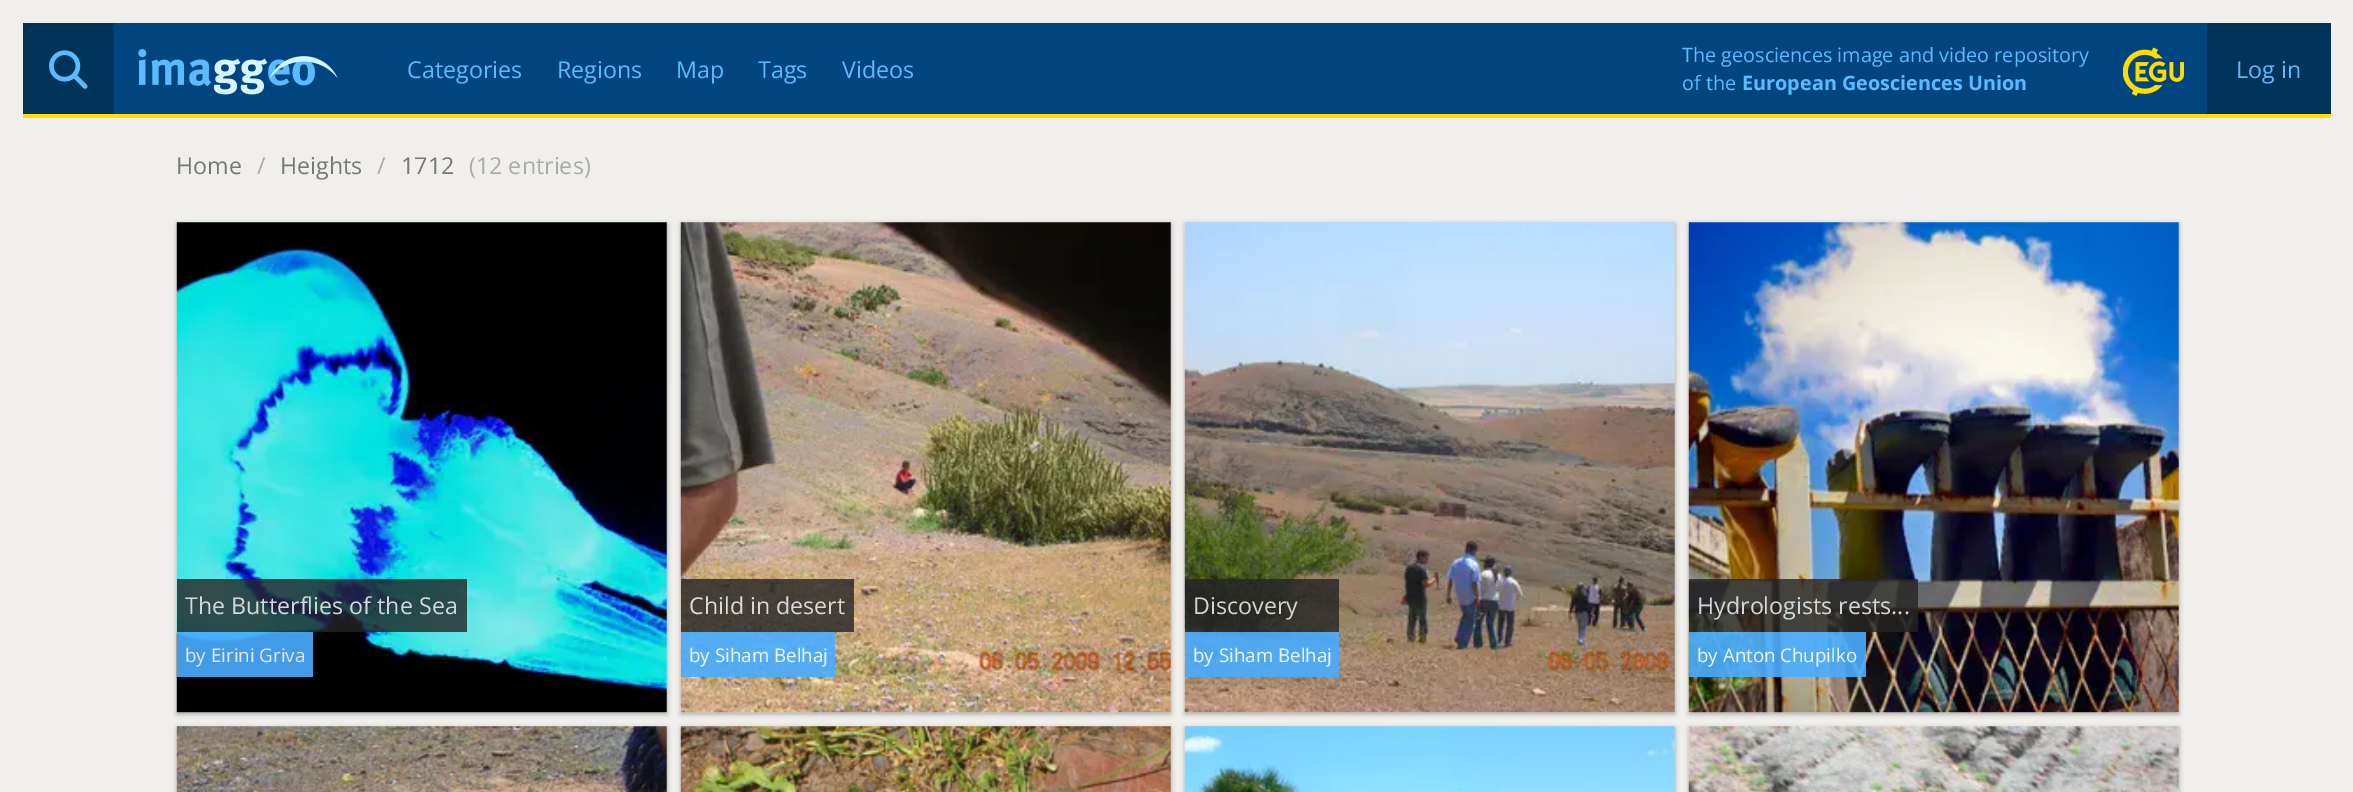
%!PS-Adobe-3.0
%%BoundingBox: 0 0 2353 792
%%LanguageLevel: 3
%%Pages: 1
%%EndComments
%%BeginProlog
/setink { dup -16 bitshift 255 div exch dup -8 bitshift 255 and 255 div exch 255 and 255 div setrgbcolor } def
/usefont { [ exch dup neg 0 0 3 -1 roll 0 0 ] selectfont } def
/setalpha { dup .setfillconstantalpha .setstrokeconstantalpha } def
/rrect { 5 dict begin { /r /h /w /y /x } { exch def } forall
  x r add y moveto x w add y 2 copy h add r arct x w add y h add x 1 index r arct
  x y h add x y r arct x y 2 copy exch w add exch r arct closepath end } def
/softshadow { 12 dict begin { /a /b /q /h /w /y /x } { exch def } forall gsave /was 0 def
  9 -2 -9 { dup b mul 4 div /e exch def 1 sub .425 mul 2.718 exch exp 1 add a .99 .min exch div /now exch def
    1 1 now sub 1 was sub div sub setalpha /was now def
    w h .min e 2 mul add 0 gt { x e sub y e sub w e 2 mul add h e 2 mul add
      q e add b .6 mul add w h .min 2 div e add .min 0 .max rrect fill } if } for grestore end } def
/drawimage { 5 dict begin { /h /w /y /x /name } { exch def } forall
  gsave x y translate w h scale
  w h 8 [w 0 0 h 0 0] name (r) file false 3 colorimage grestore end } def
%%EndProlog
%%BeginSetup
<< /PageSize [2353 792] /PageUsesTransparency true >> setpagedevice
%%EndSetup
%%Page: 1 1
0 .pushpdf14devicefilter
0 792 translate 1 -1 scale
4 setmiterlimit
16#F0EFEB setink
0 0 2353 792 rectfill
[
    [114 23 2093 91 16#004580]
    [23 114 2308 4 16#FFDE00]
    [23 23 91 91 16#00335A]
] { aload pop setink rectfill } forall
(img1.raw) 49 50 39 39 drawimage
(img2.raw) 138 49 200 46 drawimage
/OpenSans-Regular 23.25 usefont
16#5ABCFF setink
[
    [(Categories) 407 78]
    [(Regions) 557 78]
    [(Map) 676 78]
    [(Tags) 758 78]
    [(Videos) 842 78]
] { aload pop moveto show } forall
/OpenSans-Regular 19.8 usefont
1682 62 moveto (The geosciences image and video repository) show
1682 90 moveto (of the) show
/OpenSans-Bold 19.8 usefont
1742 90 moveto (European Geosciences Union) show
(img3.raw) 2123 47 61 49 drawimage
16#00335A setink
2207 23 124 91 rectfill
/OpenSans-Regular 23.25 usefont
16#5ABCFF setink
2236 78 moveto (Log in) show
16#777777 setink
176 174 moveto (Home) show
16#AAAAAA setink
257 174 moveto (/) show
16#777777 setink
280 174 moveto (Heights) show
16#AAAAAA setink
377 174 moveto (/) show
16#777777 setink
401 174 moveto (1712) show
16#AAAAAA setink
469 174 moveto (\(12 entries\)) show
16#000000 setink
177 224 490 490 0 2.5 0.3 softshadow
0.2 setalpha
16#26DEE2 setink
177 222 490 490 rectfill
1 setalpha
(img4.raw) 176 222 491 491 drawimage
0.8 setalpha
16#242424 setink
177 579 290 53 rectfill
1 setalpha
16#D3D9DA setink
185 614 moveto (The Butterflies of the Sea) show
0.9 setalpha
16#49ACFF setink
177 632 136 45 rectfill
/OpenSans-Regular 18.75 usefont
1 setalpha
16#E6E6E6 setink
185 662 moveto (by Eirini Griva) show
16#000000 setink
681 224 490 490 0 2.5 0.3 softshadow
0.2 setalpha
16#AD9579 setink
681 222 490 490 rectfill
1 setalpha
(img5.raw) 680 222 491 491 drawimage
0.8 setalpha
16#242424 setink
681 579 173 53 rectfill
/OpenSans-Regular 23.25 usefont
1 setalpha
16#DAD9D7 setink
689 614 moveto (Child in desert) show
0.9 setalpha
16#49ACFF setink
681 632 154 45 rectfill
/OpenSans-Regular 18.75 usefont
1 setalpha
16#EEF7FE setink
689 662 moveto (by Siham Belhaj) show
16#000000 setink
1185 224 490 490 0 2.5 0.3 softshadow
0.2 setalpha
16#8C7A67 setink
1185 222 490 490 rectfill
1 setalpha
(img6.raw) 1184 222 491 491 drawimage
0.8 setalpha
16#242424 setink
1185 579 154 53 rectfill
/OpenSans-Regular 23.25 usefont
1 setalpha
16#D4D4D3 setink
1193 614 moveto (Discovery) show
0.9 setalpha
16#49ACFF setink
1185 632 154 45 rectfill
/OpenSans-Regular 18.75 usefont
1 setalpha
16#EEF7FE setink
1193 662 moveto (by Siham Belhaj) show
16#000000 setink
1689 224 490 490 0 2.5 0.3 softshadow
0.2 setalpha
16#D6CEC1 setink
1689 222 490 490 rectfill
1 setalpha
(img7.raw) 1688 222 491 491 drawimage
0.8 setalpha
16#242424 setink
1689 579 229 53 rectfill
/OpenSans-Regular 23.25 usefont
1 setalpha
16#D3D9DA setink
1697 614 moveto (Hydrologists rests...) show
0.9 setalpha
16#49ACFF setink
1689 632 177 45 rectfill
/OpenSans-Regular 18.75 usefont
1 setalpha
16#EEF7FE setink
1697 662 moveto (by Anton) show
1780 662 moveto (Chupilko) show
16#000000 setink
177 728 490 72 0 2.5 0.3 softshadow
0.2 setalpha
16#A49683 setink
177 726 490 66 rectfill
1 setalpha
(img8.raw) 176 726 491 66 drawimage
16#000000 setink
681 728 490 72 0 2.5 0.3 softshadow
0.2 setalpha
16#A8865A setink
681 726 490 66 rectfill
1 setalpha
(img9.raw) 680 726 491 66 drawimage
16#000000 setink
1185 728 490 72 0 2.5 0.3 softshadow
0.2 setalpha
16#9AA29F setink
1185 726 490 66 rectfill
1 setalpha
(img10.raw) 1184 726 491 66 drawimage
16#000000 setink
1689 728 490 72 0 2.5 0.3 softshadow
0.2 setalpha
16#CFC8AB setink
1689 726 490 66 rectfill
1 setalpha
(img11.raw) 1688 726 491 66 drawimage
.poppdf14devicefilter showpage
%%EOF
